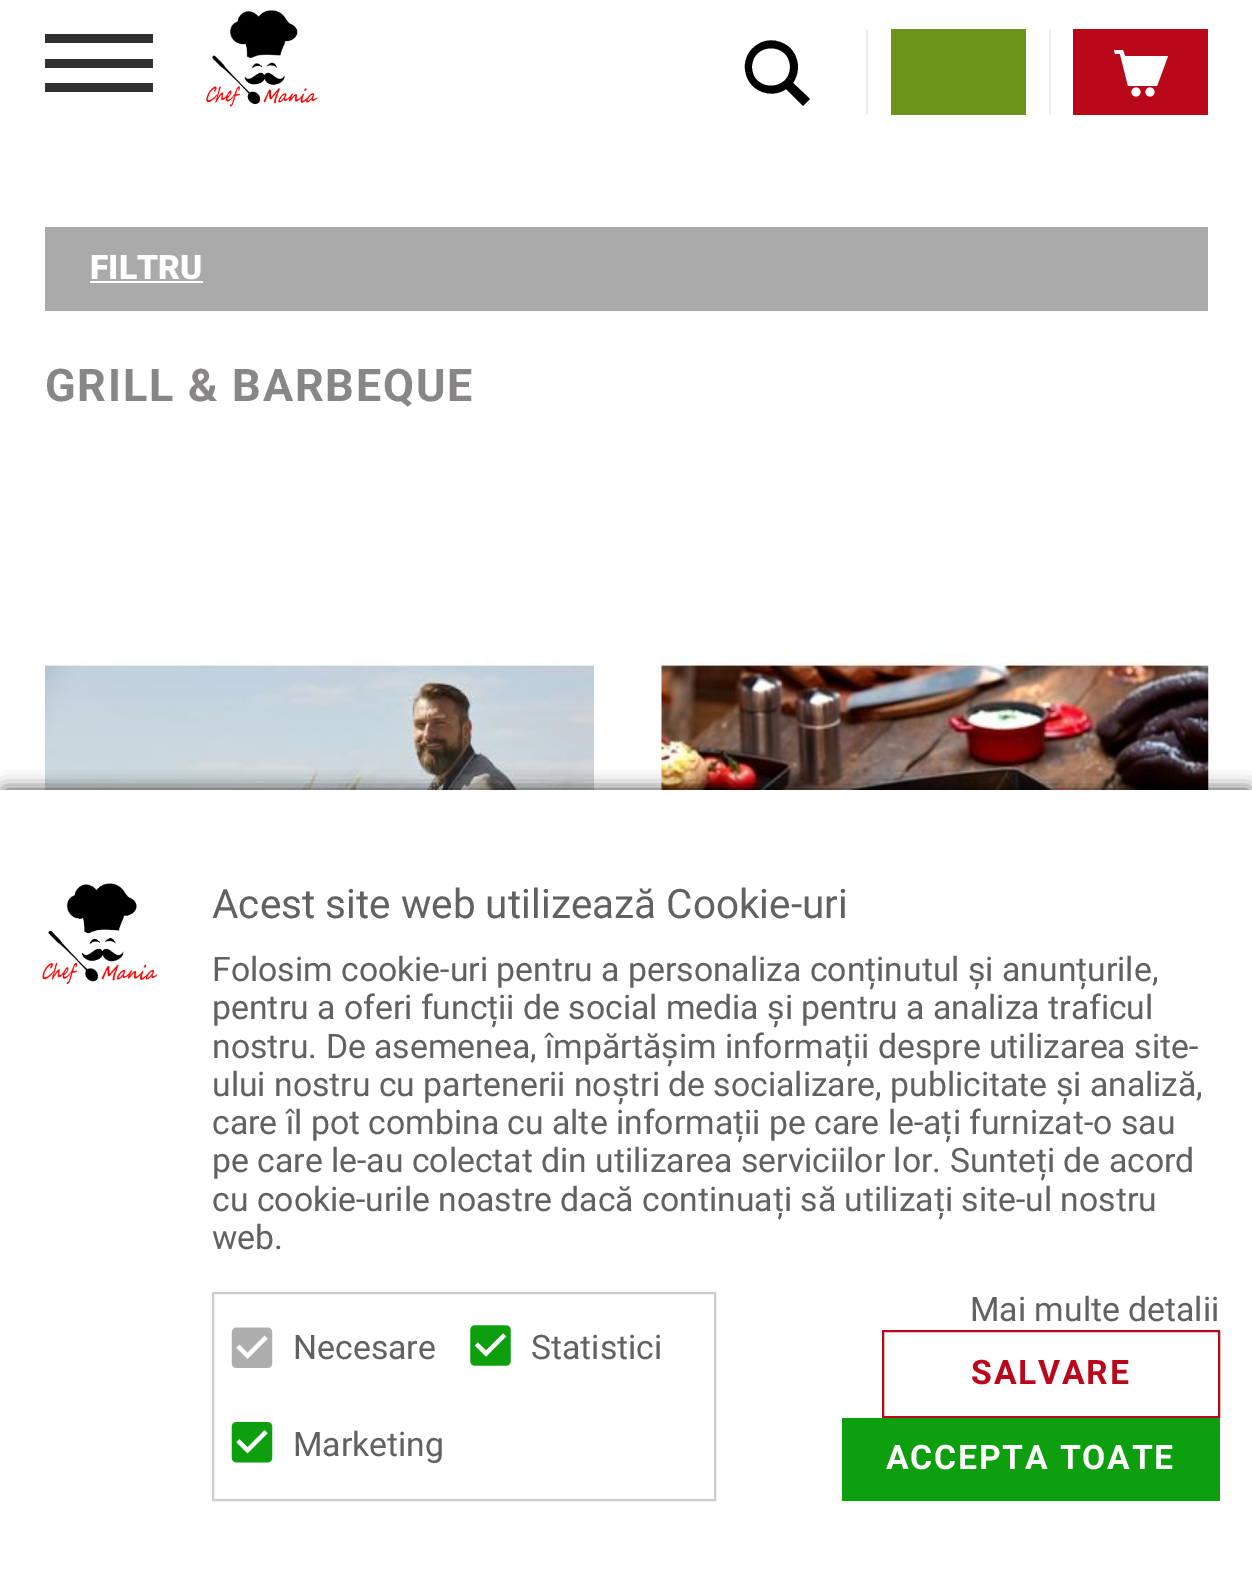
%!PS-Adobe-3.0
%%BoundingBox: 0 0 1252 1590
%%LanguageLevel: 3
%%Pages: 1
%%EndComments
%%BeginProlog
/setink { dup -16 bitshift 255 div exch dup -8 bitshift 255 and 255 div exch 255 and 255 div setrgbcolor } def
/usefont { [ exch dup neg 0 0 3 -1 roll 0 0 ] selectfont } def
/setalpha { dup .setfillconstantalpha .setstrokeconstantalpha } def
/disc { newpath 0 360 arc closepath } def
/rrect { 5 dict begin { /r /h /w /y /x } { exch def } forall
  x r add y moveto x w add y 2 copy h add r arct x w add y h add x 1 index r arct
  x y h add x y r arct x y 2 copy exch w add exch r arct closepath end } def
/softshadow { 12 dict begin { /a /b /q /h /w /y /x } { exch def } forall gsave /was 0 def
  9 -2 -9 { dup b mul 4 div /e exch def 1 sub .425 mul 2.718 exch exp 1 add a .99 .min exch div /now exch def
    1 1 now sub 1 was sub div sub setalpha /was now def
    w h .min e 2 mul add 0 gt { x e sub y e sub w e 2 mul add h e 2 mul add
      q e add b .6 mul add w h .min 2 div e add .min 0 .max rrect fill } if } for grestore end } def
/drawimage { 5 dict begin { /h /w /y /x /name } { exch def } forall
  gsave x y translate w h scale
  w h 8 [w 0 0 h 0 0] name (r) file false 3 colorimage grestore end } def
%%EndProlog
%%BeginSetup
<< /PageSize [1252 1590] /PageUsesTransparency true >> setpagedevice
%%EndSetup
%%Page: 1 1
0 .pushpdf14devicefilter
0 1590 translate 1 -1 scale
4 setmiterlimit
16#FFFFFF setink
0 0 1252 1590 rectfill
[
    [45 34 108 9 16#303030]
    [45 59 108 9 16#303030]
    [45 83 108 9 16#303030]
] { aload pop setink rectfill } forall
(img1.raw) 206 10 112 97 drawimage
16#000000 setink
810 99 moveto 793 83 lineto 801 71 799 56 789 47 curveto 778 38 763 38 753 48 curveto 743 57 742 73 751 84 curveto 759 94 775 97 786 89 curveto 803 106 lineto closepath 752 67 moveto 752 42 790 42 790 67 curveto 790 92 752 92 752 67 curveto closepath fill
[
    [866 29 2 86 16#EBEBEB]
    [891 29 135 86 16#6D941A]
    [1049 29 2 86 16#EBEBEB]
    [1073 29 135 86 16#BA081B]
] { aload pop setink rectfill } forall
16#FFFFFF setink
1125 56 moveto 1123 50 lineto 1114 50 lineto 1115 54 lineto 1120 54 lineto 1128 86 lineto 1157 86 lineto 1168 56 lineto closepath eofill
1150 92 4.5 disc fill
1136 92 4.5 disc fill
16#AAAAAA setink
45 227 1163 84 rectfill
/Roboto-Black 33.75 usefont
16#FFFFFF setink
90 279 moveto (FILTRU) show
90 281 113 2 rectfill
/Roboto-Bold 45 usefont
16#888686 setink
45 401 moveto 1.75 0 (GRILL & BARBEQUE) ashow
(img2.raw) 45 585 549 205 drawimage
(img3.raw) 661 585 548 205 drawimage
16#000000 setink
5 790 1244 792 0 9 0.75 softshadow
16#FFFFFF setink
0 790 1252 800 rectfill
(img4.raw) 42 883 116 101 drawimage
/Roboto-Regular 40.5 usefont
16#616161 setink
212 918 moveto (Acest site web utilizează Cookie-uri) show
/Roboto-Regular 33.75 usefont
[
    [(Folosim cookie-uri pentru a personaliza conținutul și anunțurile,) 212 981]
    [(pentru a oferi funcții de social media și pentru a analiza traficul) 212 1019]
    [(nostru. De asemenea, împărtășim informații despre utilizarea site-) 212 1058]
    [(ului nostru cu partenerii noștri de socializare, publicitate și analiză,) 212 1096]
    [(care îl pot combina cu alte informații pe care le-ați furnizat-o sau) 212 1134]
    [(pe care le-au colectat din utilizarea serviciilor lor. Sunteți de acord) 212 1172]
    [(cu cookie-urile noastre dacă continuați să utilizați site-ul nostru) 212 1211]
    [(web.) 212 1249]
] { aload pop moveto show } forall
16#CCCCCC setink
2 setlinewidth
213 1293 502 207 rectstroke
(img5.raw) 231 1327 42 41 drawimage
16#616161 setink
293 1359 moveto (Necesare) show
(img6.raw) 470 1325 41 41 drawimage
531 1359 moveto (Statistici) show
(img7.raw) 231 1422 42 41 drawimage
293 1456 moveto (Marketing) show
970 1321 moveto (Mai multe detalii) show
16#BA081B setink
883 1331 336 86 rectstroke
/Roboto-Bold 33.75 usefont
971 1384 moveto 1.75 0 (SALVARE) ashow
16#0D9F0D setink
842 1418 378 83 rectfill
16#FFFFFF setink
886 1469 moveto 1.75 0 (ACCEPTA TOATE) ashow
.poppdf14devicefilter showpage
%%EOF
